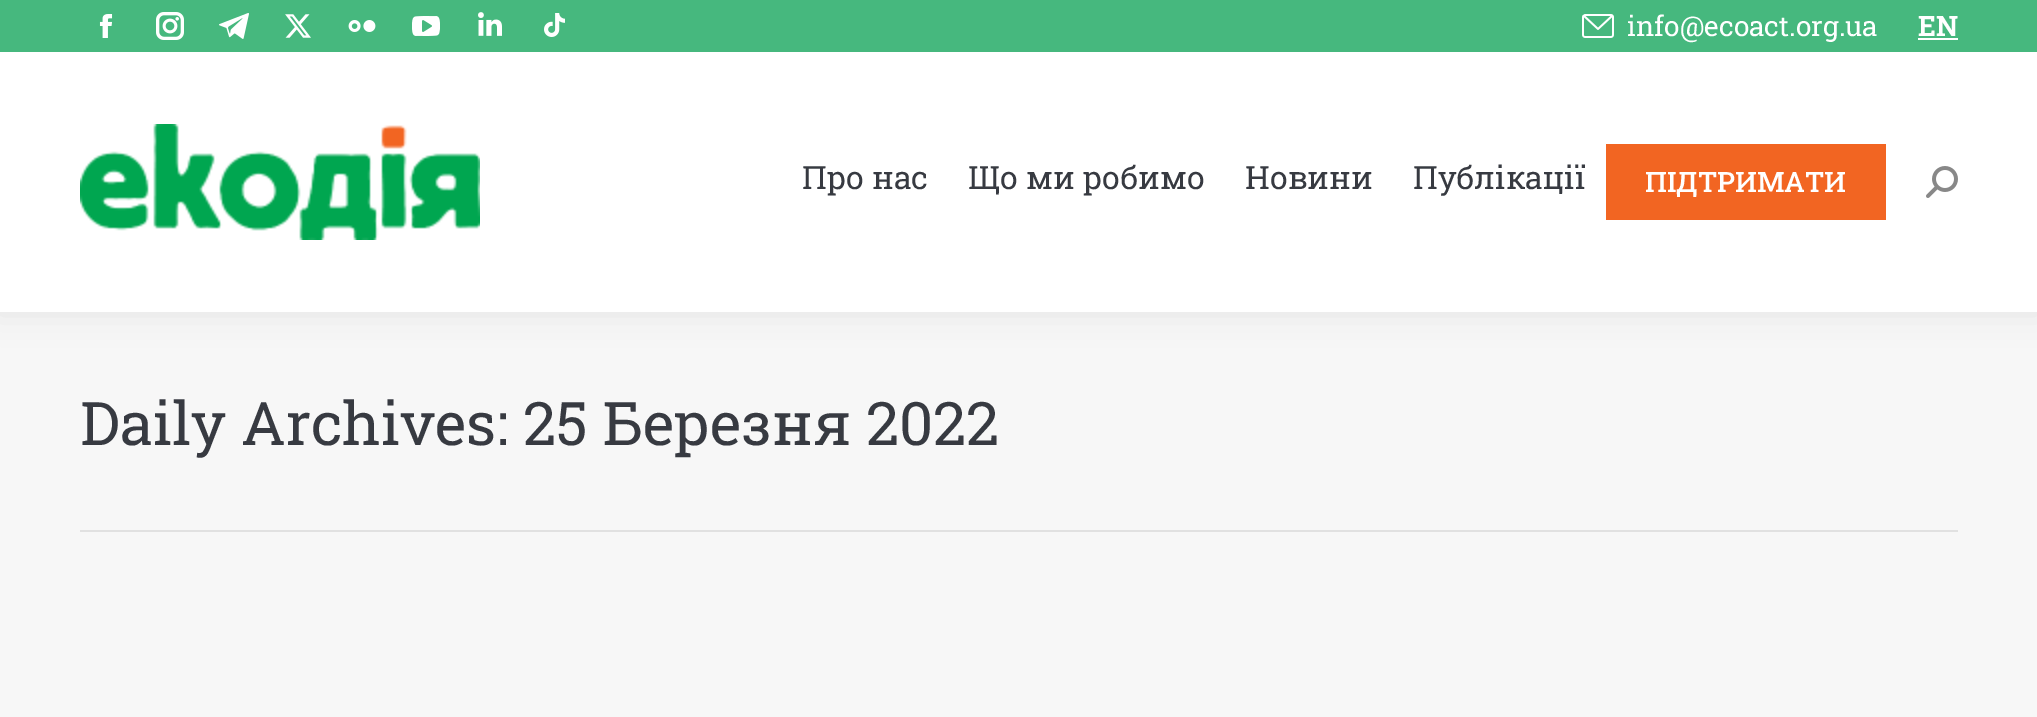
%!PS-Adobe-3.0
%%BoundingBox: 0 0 2037 717
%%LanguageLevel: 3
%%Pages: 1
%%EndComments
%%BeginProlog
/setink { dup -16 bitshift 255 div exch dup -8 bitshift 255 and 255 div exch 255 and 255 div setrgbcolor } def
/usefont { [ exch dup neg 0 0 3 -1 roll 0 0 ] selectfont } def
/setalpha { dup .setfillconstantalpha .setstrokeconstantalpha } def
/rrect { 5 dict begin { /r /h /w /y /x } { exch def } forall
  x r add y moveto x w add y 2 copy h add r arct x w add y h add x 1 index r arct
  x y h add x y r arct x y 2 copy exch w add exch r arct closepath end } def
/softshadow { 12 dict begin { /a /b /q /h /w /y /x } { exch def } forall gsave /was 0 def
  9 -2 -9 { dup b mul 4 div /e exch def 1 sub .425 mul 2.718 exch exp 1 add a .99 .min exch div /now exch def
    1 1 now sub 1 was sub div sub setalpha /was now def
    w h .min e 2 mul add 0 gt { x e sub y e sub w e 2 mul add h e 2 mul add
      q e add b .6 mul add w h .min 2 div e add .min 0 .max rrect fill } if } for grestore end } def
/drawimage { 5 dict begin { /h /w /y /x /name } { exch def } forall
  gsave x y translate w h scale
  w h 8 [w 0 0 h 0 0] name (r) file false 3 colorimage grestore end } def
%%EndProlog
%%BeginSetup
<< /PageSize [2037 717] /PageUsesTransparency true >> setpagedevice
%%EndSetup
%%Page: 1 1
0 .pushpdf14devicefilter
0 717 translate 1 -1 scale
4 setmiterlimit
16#F7F7F7 setink
0 0 2037 717 rectfill
16#000000 setink
-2 -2 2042 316 0 15 0.07 softshadow
16#FFFFFF setink
0 52 2037 260 rectfill
16#46B87E setink
0 0 2037 52 rectfill
(img1.raw) 99 14 14 24 drawimage
(img2.raw) 156 12 28 28 drawimage
(img3.raw) 219 13 30 26 drawimage
(img4.raw) 285 14 26 24 drawimage
(img5.raw) 348 20 28 12 drawimage
(img6.raw) 412 16 28 20 drawimage
(img7.raw) 478 12 24 24 drawimage
(img8.raw) 544 13 21 24 drawimage
(img9.raw) 1582 14 32 24 drawimage
/RobotoSlab-Regular 28 usefont
16#FFFFFF setink
1627 36 moveto (info@ecoact.org.ua) show
/RobotoSlab-Bold 28 usefont
1918 36 moveto (EN) show
1918 38 40 2 rectfill
(img10.raw) 80 124 400 116 drawimage
/RobotoSlab-Regular 32 usefont
16#373A41 setink
[
    [(Про нас) 802 189]
    [(Що ми робимо) 968 189]
    [(Новини) 1245 189]
    [(Публікації) 1413 189]
] { aload pop moveto show } forall
16#F26522 setink
1606 144 280 76 rectfill
/RobotoSlab-Medium 28 usefont
16#FFFFFF setink
1645 192 moveto (ПІДТРИМАТИ) show
(img11.raw) 1926 166 32 32 drawimage
/RobotoSlab-Regular 60 usefont
16#373A41 setink
80 445 moveto (Daily Archives: 25 Березня 2022) show
16#E1E1E1 setink
80 530 1878 2 rectfill
.poppdf14devicefilter showpage
%%EOF
